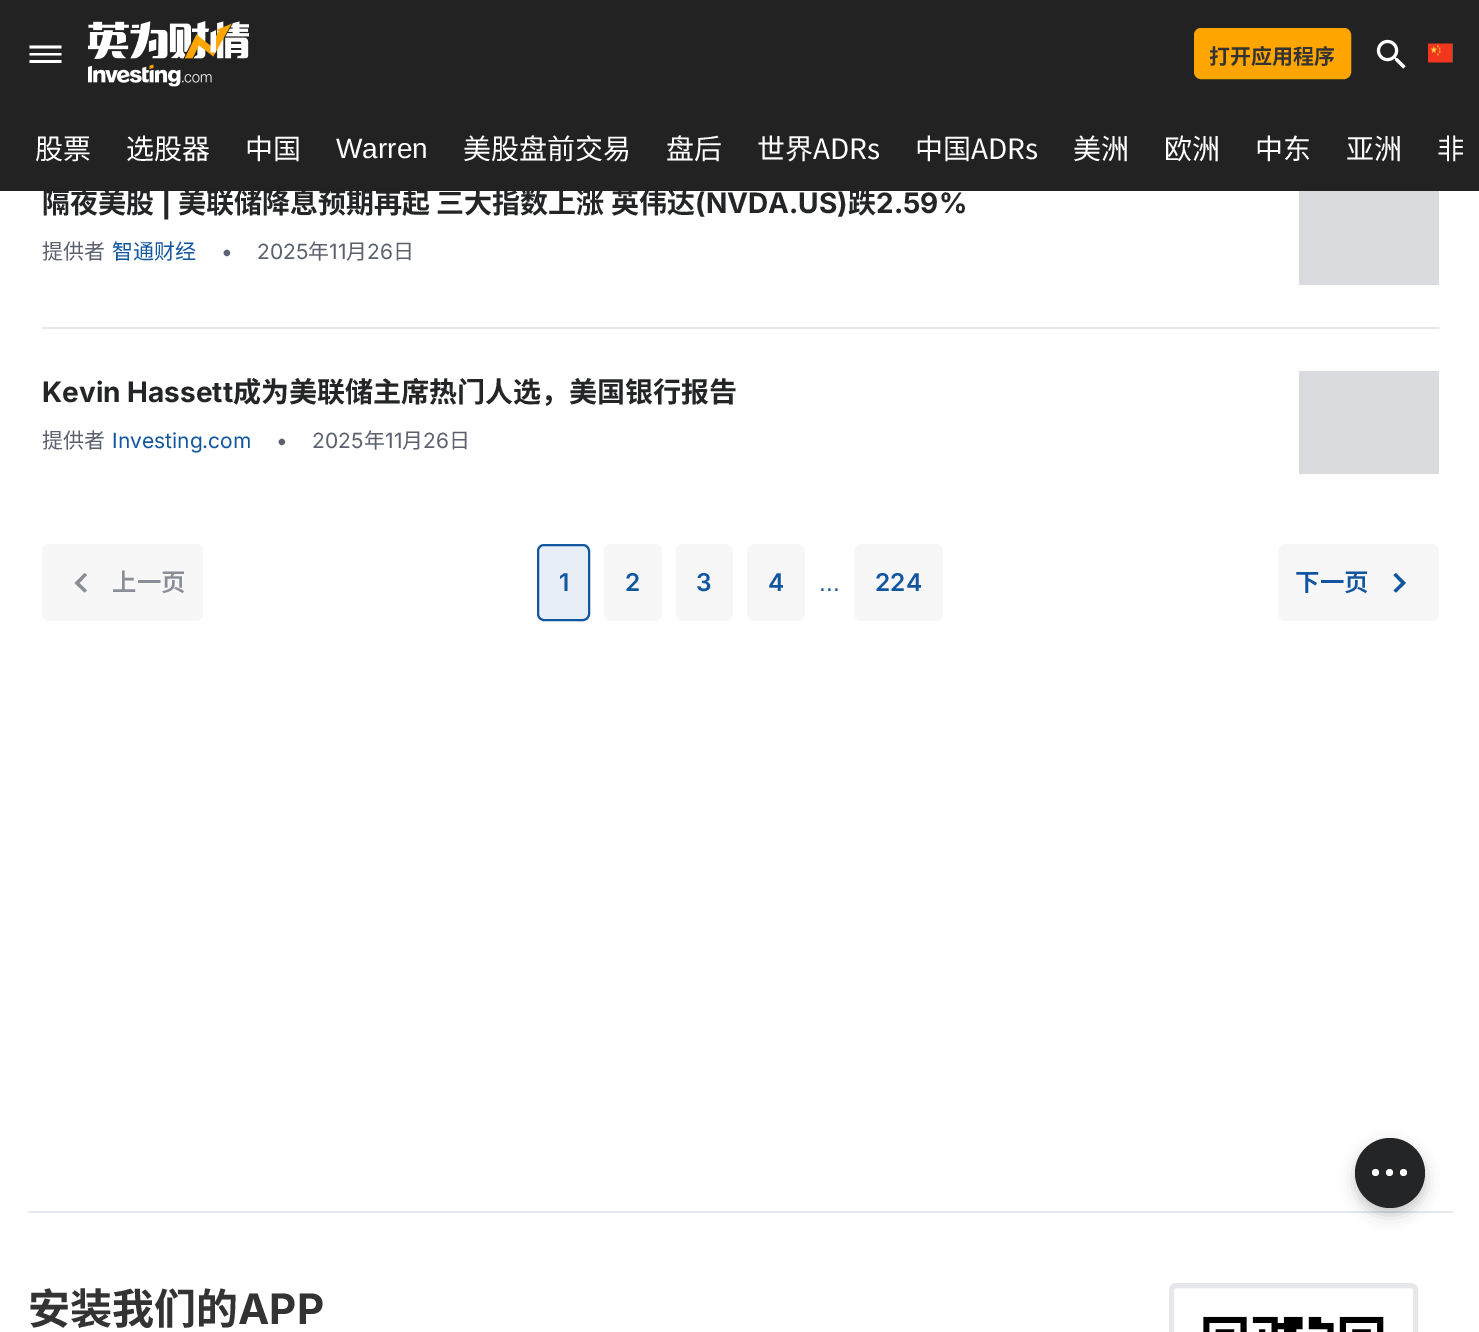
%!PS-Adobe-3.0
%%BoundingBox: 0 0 1479 1332
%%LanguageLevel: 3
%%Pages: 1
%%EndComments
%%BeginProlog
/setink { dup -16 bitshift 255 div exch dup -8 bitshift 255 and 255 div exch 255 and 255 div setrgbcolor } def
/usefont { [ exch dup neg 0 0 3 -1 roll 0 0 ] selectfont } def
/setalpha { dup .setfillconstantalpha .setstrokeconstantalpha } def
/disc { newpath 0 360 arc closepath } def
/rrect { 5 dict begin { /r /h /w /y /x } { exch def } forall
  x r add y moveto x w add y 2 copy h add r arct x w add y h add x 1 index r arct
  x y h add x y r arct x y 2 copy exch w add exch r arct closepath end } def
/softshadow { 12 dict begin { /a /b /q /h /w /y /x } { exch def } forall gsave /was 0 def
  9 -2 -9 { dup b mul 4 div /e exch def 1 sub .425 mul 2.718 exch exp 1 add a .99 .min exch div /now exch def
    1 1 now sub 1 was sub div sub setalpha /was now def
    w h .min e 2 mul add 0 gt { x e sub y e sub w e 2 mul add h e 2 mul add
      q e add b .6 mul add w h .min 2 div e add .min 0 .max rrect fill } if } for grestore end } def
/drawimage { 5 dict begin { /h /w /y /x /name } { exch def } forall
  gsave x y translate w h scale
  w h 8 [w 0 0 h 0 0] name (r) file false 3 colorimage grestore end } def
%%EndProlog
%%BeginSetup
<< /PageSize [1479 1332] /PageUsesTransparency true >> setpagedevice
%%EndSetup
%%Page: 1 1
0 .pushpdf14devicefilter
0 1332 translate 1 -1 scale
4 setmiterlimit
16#FFFFFF setink
0 0 1479 1332 rectfill
/NotoSansSC-Bold 28 usefont
16#232526 setink
42 213 moveto (隔夜美股) show
/Inter-Bold 28 usefont
161 213 moveto (|) show
/NotoSansSC-Bold 28 usefont
178 213 moveto (美联储降息预期再起 三大指数上涨 英伟达) show
/Inter-Bold 28 usefont
695 213 moveto (\(NVDA.US\)) show
/NotoSansSC-Bold 28 usefont
848 213 moveto (跌) show
16#222222 setink
0 0 1479 191 rectfill
16#FFFFFF setink
29.5 63 moveto 61.5 63 lineto 61.5 60 lineto 29.5 60 lineto closepath 29.5 55.5 moveto 61.5 55.5 lineto 61.5 53 lineto 29.5 53 lineto closepath 29.5 45.5 moveto 29.5 48.5 lineto 61.5 48.5 lineto 61.5 45.5 lineto closepath eofill
(img1.raw) 88 21 161 66 drawimage
16#FFA500 setink
1195 29 155 49 6 rrect gsave fill grestore
2 setlinewidth
stroke
/NotoSansSC-Bold 21 usefont
16#333333 setink
1209 64 moveto (打开应用程序) show
(img2.raw) 1376 39 30 30 drawimage
(img3.raw) 1428 43 25 20 drawimage
/NotoSansSC-Regular 28 usefont
16#FFFFFF setink
[
    [(股票) 35 159]
    [(选股器) 126 159]
    [(中国) 245 159]
] { aload pop moveto show } forall
/LiberationSans-Regular 28 usefont
336 158 moveto (Warren) show
/NotoSansSC-Regular 28 usefont
[
    [(美股盘前交易) 463 159]
    [(盘后) 666 159]
    [(世界ADRs) 757 159]
    [(中国ADRs) 915 159]
    [(美洲) 1073 159]
    [(欧洲) 1164 159]
    [(中东) 1255 159]
    [(亚洲) 1346 159]
] { aload pop moveto show } forall
gsave
18 109 1445 82 rectclip
1437 159 moveto (非) show
grestore
16#E6E9EB setink
42 327 1397 2 rectfill
/Inter-Bold 28 usefont
16#232526 setink
876 213 moveto (2.59%) show
/NotoSansSC-Regular 21 usefont
16#5B616E setink
42 259 moveto (提供者) show
16#1256A0 setink
112 259 moveto (智通财经) show
/Inter-Regular 21 usefont
16#5B616E setink
221 259 moveto (•) show
257 259 moveto (2025) show
/NotoSansSC-Regular 21 usefont
308 259 moveto (年) show
/Inter-Regular 21 usefont
329 259 moveto (11) show
/NotoSansSC-Regular 21 usefont
346 259 moveto (月) show
/Inter-Regular 21 usefont
367 259 moveto (26) show
/NotoSansSC-Regular 21 usefont
393 259 moveto (日) show
16#DADBDE setink
1299 191 140 94 rectfill
/Inter-Bold 28 usefont
16#232526 setink
42 402 moveto (Kevin Hassett) show
/NotoSansSC-Bold 28 usefont
233 402 moveto (成为美联储主席热门人选，美国银行报告) show
/NotoSansSC-Regular 21 usefont
16#5B616E setink
42 448 moveto (提供者) show
/Inter-Regular 21 usefont
16#1256A0 setink
112 448 moveto (Investing.com) show
16#5B616E setink
276 448 moveto (•) show
312 448 moveto (2025) show
/NotoSansSC-Regular 21 usefont
364 448 moveto (年) show
/Inter-Regular 21 usefont
385 448 moveto (11) show
/NotoSansSC-Regular 21 usefont
402 448 moveto (月) show
/Inter-Regular 21 usefont
423 448 moveto (26) show
/NotoSansSC-Regular 21 usefont
449 448 moveto (日) show
16#DADBDE setink
1299 371 140 103 rectfill
16#F7F7F8 setink
42 544 161 77 7 rrect fill
16#8A8E97 setink
74.5 583 moveto 84.5 592.5 lineto 87 590.5 lineto 79.5 583 lineto 87 575 lineto 84.5 573 lineto closepath eofill
/NotoSansSC-SemiBold 24.5 usefont
112 591 moveto (上一页) show
16#E7EEF6 setink
538 545 51 75 6 rrect gsave fill grestore
16#1256A0 setink
stroke
/Inter-SemiBold 24.5 usefont
559 591 moveto (1) show
16#F7F7F8 setink
604 544 58 77 7 rrect fill
16#1256A0 setink
625 591 moveto (2) show
16#F7F7F8 setink
676 544 57 77 7 rrect fill
16#1256A0 setink
696 591 moveto (3) show
16#F7F7F8 setink
747 544 58 77 7 rrect fill
16#1256A0 setink
768 591 moveto (4) show
/LiberationSans-Regular 24.5 usefont
819 591 moveto (...) show
16#F7F7F8 setink
854 544 89 77 7 rrect fill
/Inter-SemiBold 24.5 usefont
16#1256A0 setink
875 591 moveto (224) show
16#F7F7F8 setink
1278 544 161 77 7 rrect fill
/NotoSansSC-SemiBold 24.5 usefont
16#1256A0 setink
1295 591 moveto (下一页) show
1406 583 moveto 1396 592.5 lineto 1393.5 590.5 lineto 1401 583 lineto 1393.5 575 lineto 1396 573 lineto closepath eofill
16#E6E9EB setink
28 1211 1425 2 rectfill
16#232526 setink
1355 1145 70 70 35 7 0.25 softshadow
1390 1173 35 disc fill
16#FFFFFF setink
1403.5 1172.5 3.5 disc fill
1375.5 1172.5 3.5 disc fill
1389.5 1172.5 3.5 disc fill
/NotoSansSC-Bold 42 usefont
16#333333 setink
28 1324 moveto (安装我们的) show
/Inter-Bold 42 usefont
238 1324 moveto (APP) show
16#E5E7EB setink
5 setlinewidth
1171.5 1285.5 244 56 4.5 rrect stroke
(img4.raw) 1203 1316 181 16 drawimage
.poppdf14devicefilter showpage
%%EOF
